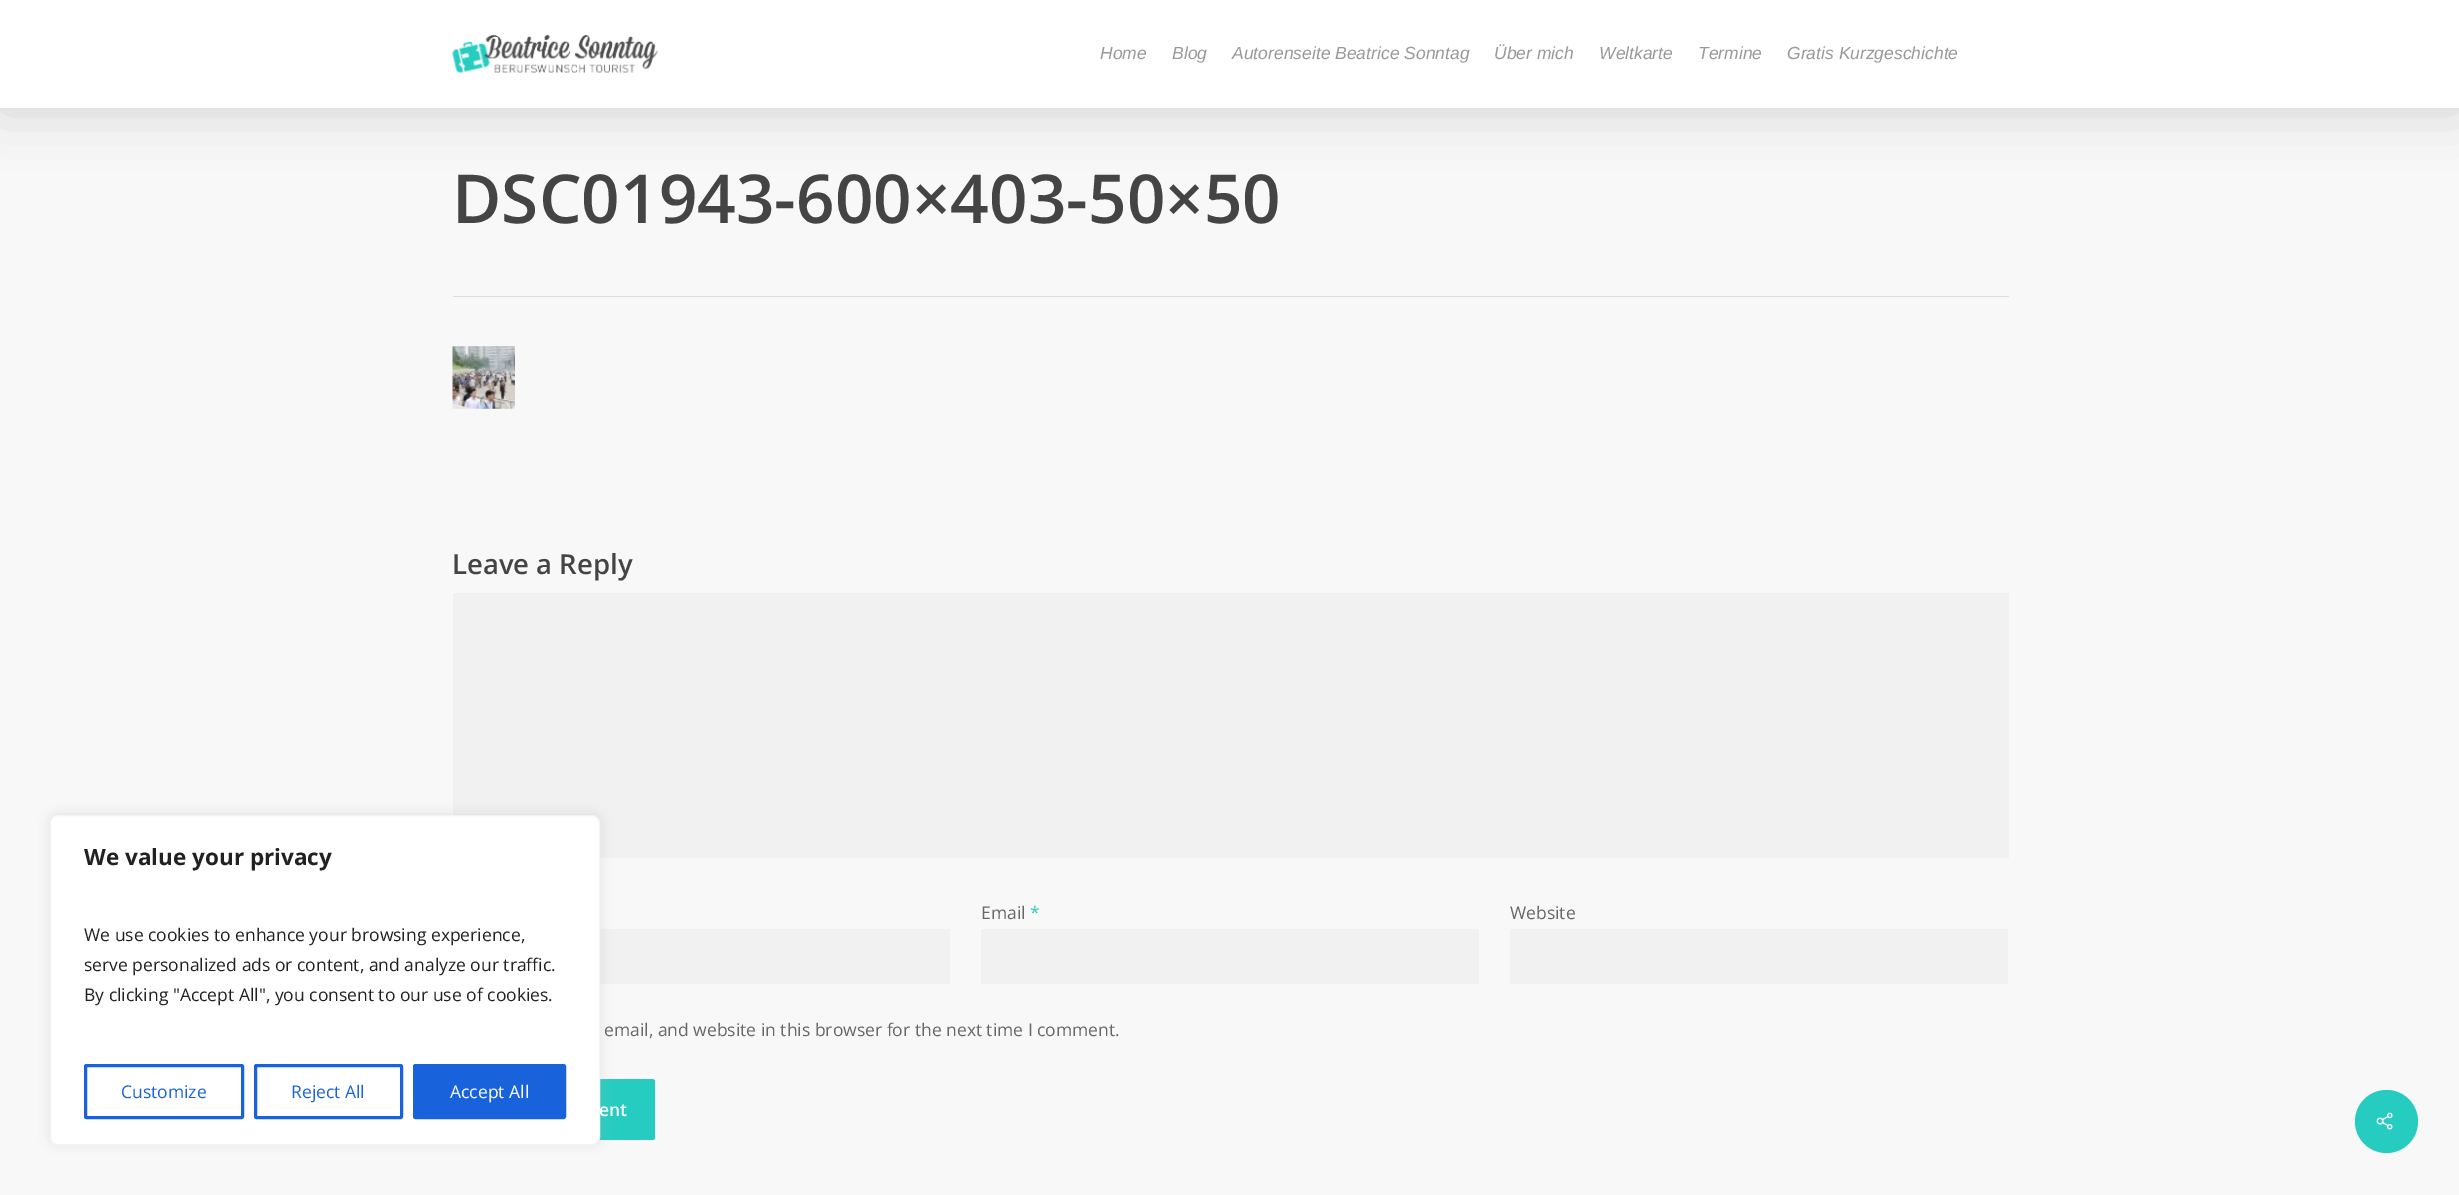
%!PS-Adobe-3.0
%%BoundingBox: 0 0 2459 1195
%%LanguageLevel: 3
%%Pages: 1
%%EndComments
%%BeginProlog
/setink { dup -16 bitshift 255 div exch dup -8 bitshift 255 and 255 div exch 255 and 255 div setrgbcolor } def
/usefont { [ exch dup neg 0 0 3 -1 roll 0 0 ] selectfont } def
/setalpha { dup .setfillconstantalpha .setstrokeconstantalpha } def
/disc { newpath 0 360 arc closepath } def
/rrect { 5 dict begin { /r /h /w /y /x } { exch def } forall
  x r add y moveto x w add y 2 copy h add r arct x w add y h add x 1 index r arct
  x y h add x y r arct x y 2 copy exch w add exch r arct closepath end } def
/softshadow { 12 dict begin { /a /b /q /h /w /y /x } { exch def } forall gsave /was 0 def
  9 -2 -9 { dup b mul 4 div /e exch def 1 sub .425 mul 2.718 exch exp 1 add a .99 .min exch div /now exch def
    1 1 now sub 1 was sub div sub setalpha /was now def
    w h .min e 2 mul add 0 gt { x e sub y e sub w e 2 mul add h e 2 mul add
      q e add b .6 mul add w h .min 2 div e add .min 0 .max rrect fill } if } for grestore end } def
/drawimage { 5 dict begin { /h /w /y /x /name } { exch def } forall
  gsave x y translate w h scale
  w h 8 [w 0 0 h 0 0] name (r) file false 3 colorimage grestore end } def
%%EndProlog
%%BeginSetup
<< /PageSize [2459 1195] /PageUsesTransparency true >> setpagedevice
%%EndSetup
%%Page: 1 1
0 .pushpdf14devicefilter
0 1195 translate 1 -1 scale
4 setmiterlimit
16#F8F8F8 setink
0 0 2459 1195 rectfill
16#000000 setink
0 4 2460 107 0 28 0.15 softshadow
16#FFFFFF setink
0 0 2459 108 rectfill
(img1.raw) 452 35 206 38 drawimage
/LiberationSans-Italic 17.5 usefont
16#999999 setink
[
    [(Home) 1100 59]
    [(Blog) 1172 59]
    [(Autorenseite Beatrice Sonntag) 1232 59]
    [(Über mich) 1494 59]
    [(Weltkarte) 1599 59]
    [(Termine) 1698 59]
    [(Gratis Kurzgeschichte) 1787 59]
] { aload pop moveto show } forall
16#F1F1F1 setink
453 593 1556 265 rectfill
600 929 350 55 rectfill
16#27CCC0 setink
453 1079 202 61 2.5 rrect fill
16#ACABAB setink
50 814 550 330 8 6 0.3 softshadow
16#FFFFFF setink
50.5 815.5 549 329 7.5 rrect gsave fill grestore
16#F4F4F4 setink
stroke
/OpenSans-Bold 22.5 usefont
16#212121 setink
84 865 moveto (We value your privacy) show
/OpenSans-Regular 17.5 usefont
[
    [(We use cookies to enhance your browsing experience,) 84 941]
    [(serve personalized ads or content, and analyze our traffic.) 84 971]
    [(By clicking "Accept All", you consent to our use of cookies.) 84 1001]
] { aload pop moveto show } forall
16#1863DC setink
3 setlinewidth
85.5 1065.5 157 52 1 rrect stroke
121 1098 moveto (Customize) show
255.5 1065.5 146 52 1 rrect stroke
291 1098 moveto (Reject All) show
414.5 1065.5 150 52 1 rrect gsave fill grestore
stroke
16#FFFFFF setink
450 1098 moveto (Accept All) show
16#DDDDDD setink
453 296 1556 1 rectfill
/OpenSans-SemiBold 67.5 usefont
16#444444 setink
452 223 moveto (DSC01943-600×403-50×50) show
(img2.raw) 452 346 63 63 drawimage
/OpenSans-SemiBold 27.5 usefont
452 574 moveto (Leave a Reply) show
/OpenSans-Regular 17.5 usefont
16#676767 setink
981 919 moveto (Email) show
16#27CCC0 setink
1030 919 moveto (*) show
16#F1F1F1 setink
981 929 498 55 rectfill
16#676767 setink
1510 919 moveto (Website) show
16#F1F1F1 setink
1510 929 498 55 rectfill
16#676767 setink
604 1036 moveto (email, and website in this browser for the next time I comment.) show
/OpenSans-SemiBold 17.5 usefont
16#FFFFFF setink
599 1116 moveto (ent) show
16#27CCC0 setink
2386.5 1121.5 31.5 disc fill
(img3.raw) 2376 1112 17 18 drawimage
.poppdf14devicefilter showpage
%%EOF
